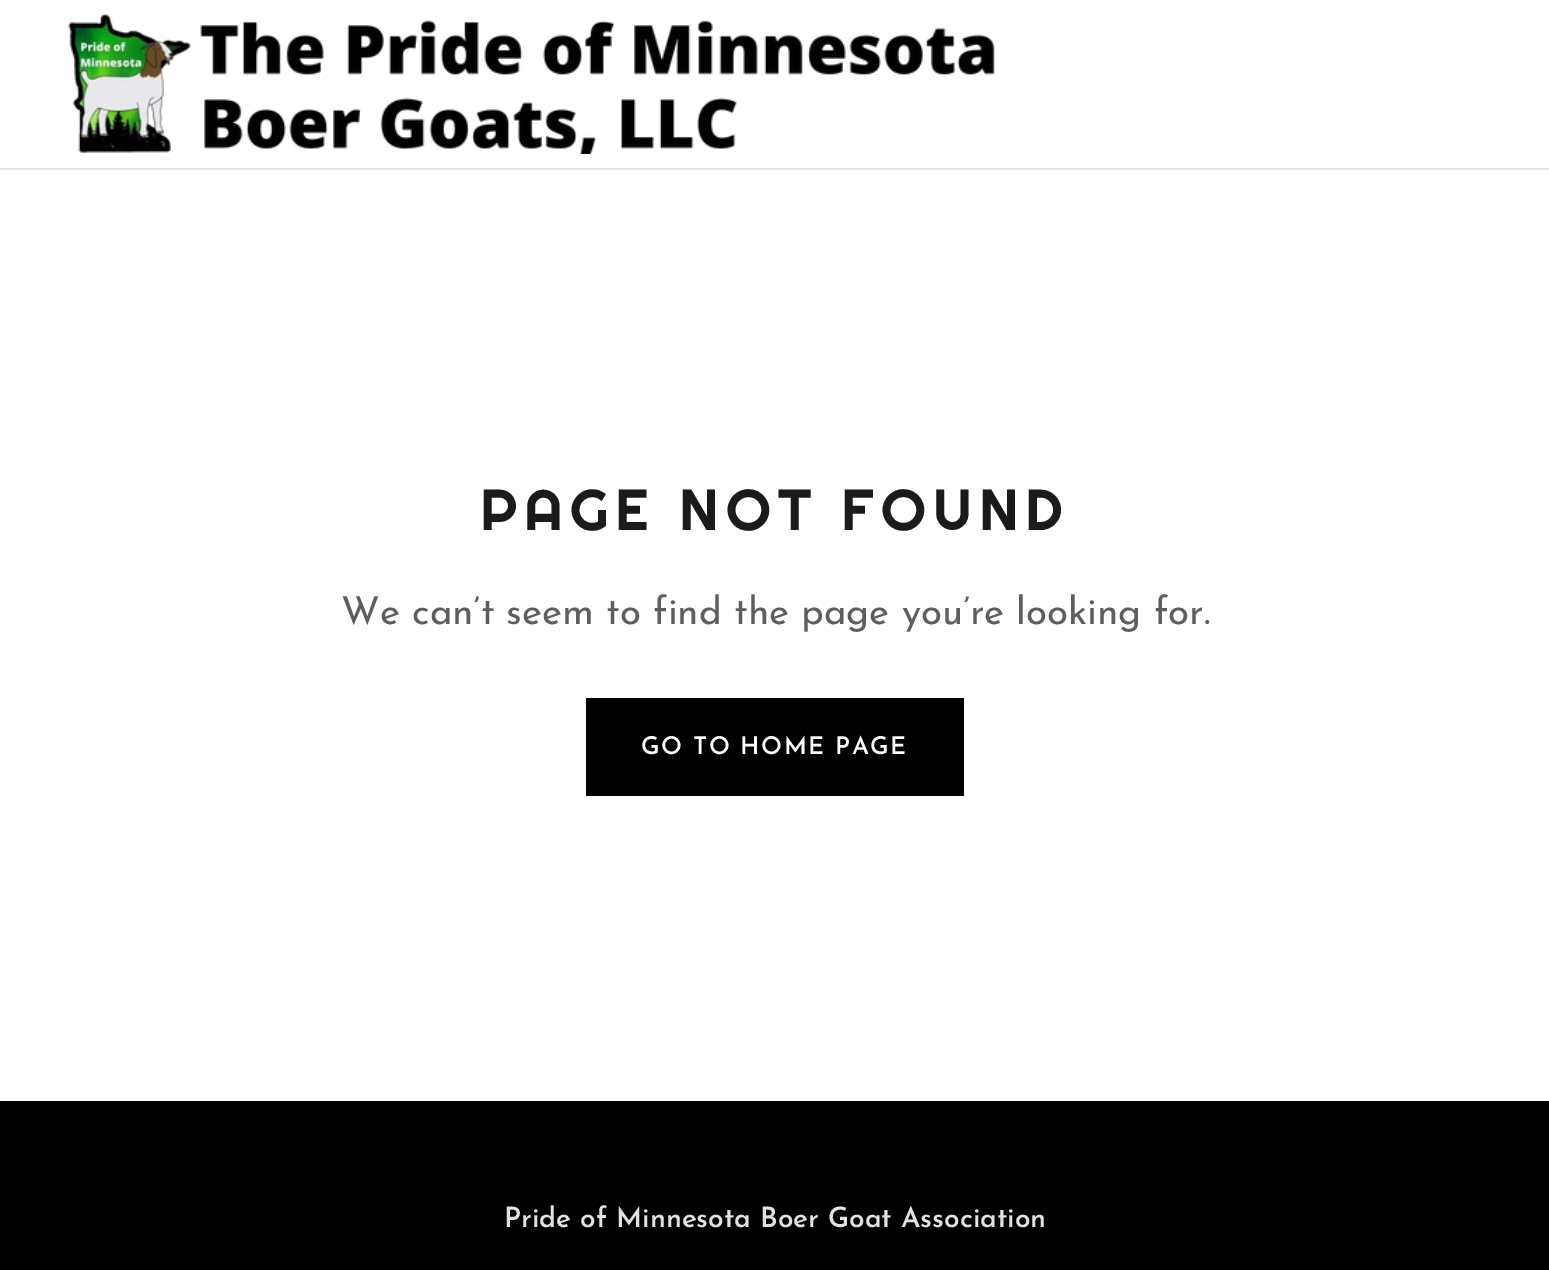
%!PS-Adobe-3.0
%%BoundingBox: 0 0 1549 1270
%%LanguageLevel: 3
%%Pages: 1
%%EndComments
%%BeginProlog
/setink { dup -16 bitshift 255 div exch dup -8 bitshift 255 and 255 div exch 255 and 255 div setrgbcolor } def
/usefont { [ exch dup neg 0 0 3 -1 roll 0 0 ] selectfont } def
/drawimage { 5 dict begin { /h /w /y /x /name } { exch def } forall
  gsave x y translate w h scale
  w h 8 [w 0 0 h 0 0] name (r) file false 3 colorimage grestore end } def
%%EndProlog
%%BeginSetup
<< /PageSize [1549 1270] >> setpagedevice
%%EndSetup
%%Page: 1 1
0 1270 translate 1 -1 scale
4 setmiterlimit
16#000000 setink
0 0 1549 1270 rectfill
16#FFFFFF setink
0 0 1549 168 rectfill
(img1.raw) 68 14 927 140 drawimage
16#E2E2E2 setink
0 168 1549 2 rectfill
16#FFFFFF setink
0 170 1549 931 rectfill
/Righteous-Regular 57.75 usefont
16#1B1B1B setink
480 530 moveto 7 0 (PAGE NOT FOUND) ashow
/JosefinSans-Regular 38.5 usefont
16#5E5E5E setink
341 624 moveto (We can’t seem to find the page you’re looking for.) show
16#000000 setink
586 698 378 98 rectfill
/JosefinSans-SemiBold 24.5 usefont
16#FFFFFF setink
641 754 moveto 1.5 0 (GO TO HOME PAGE) ashow
/JosefinSans-SemiBold 28 usefont
16#E2E2E2 setink
504 1227 moveto (Pride of Minnesota Boer Goat Association) show
showpage
%%EOF
